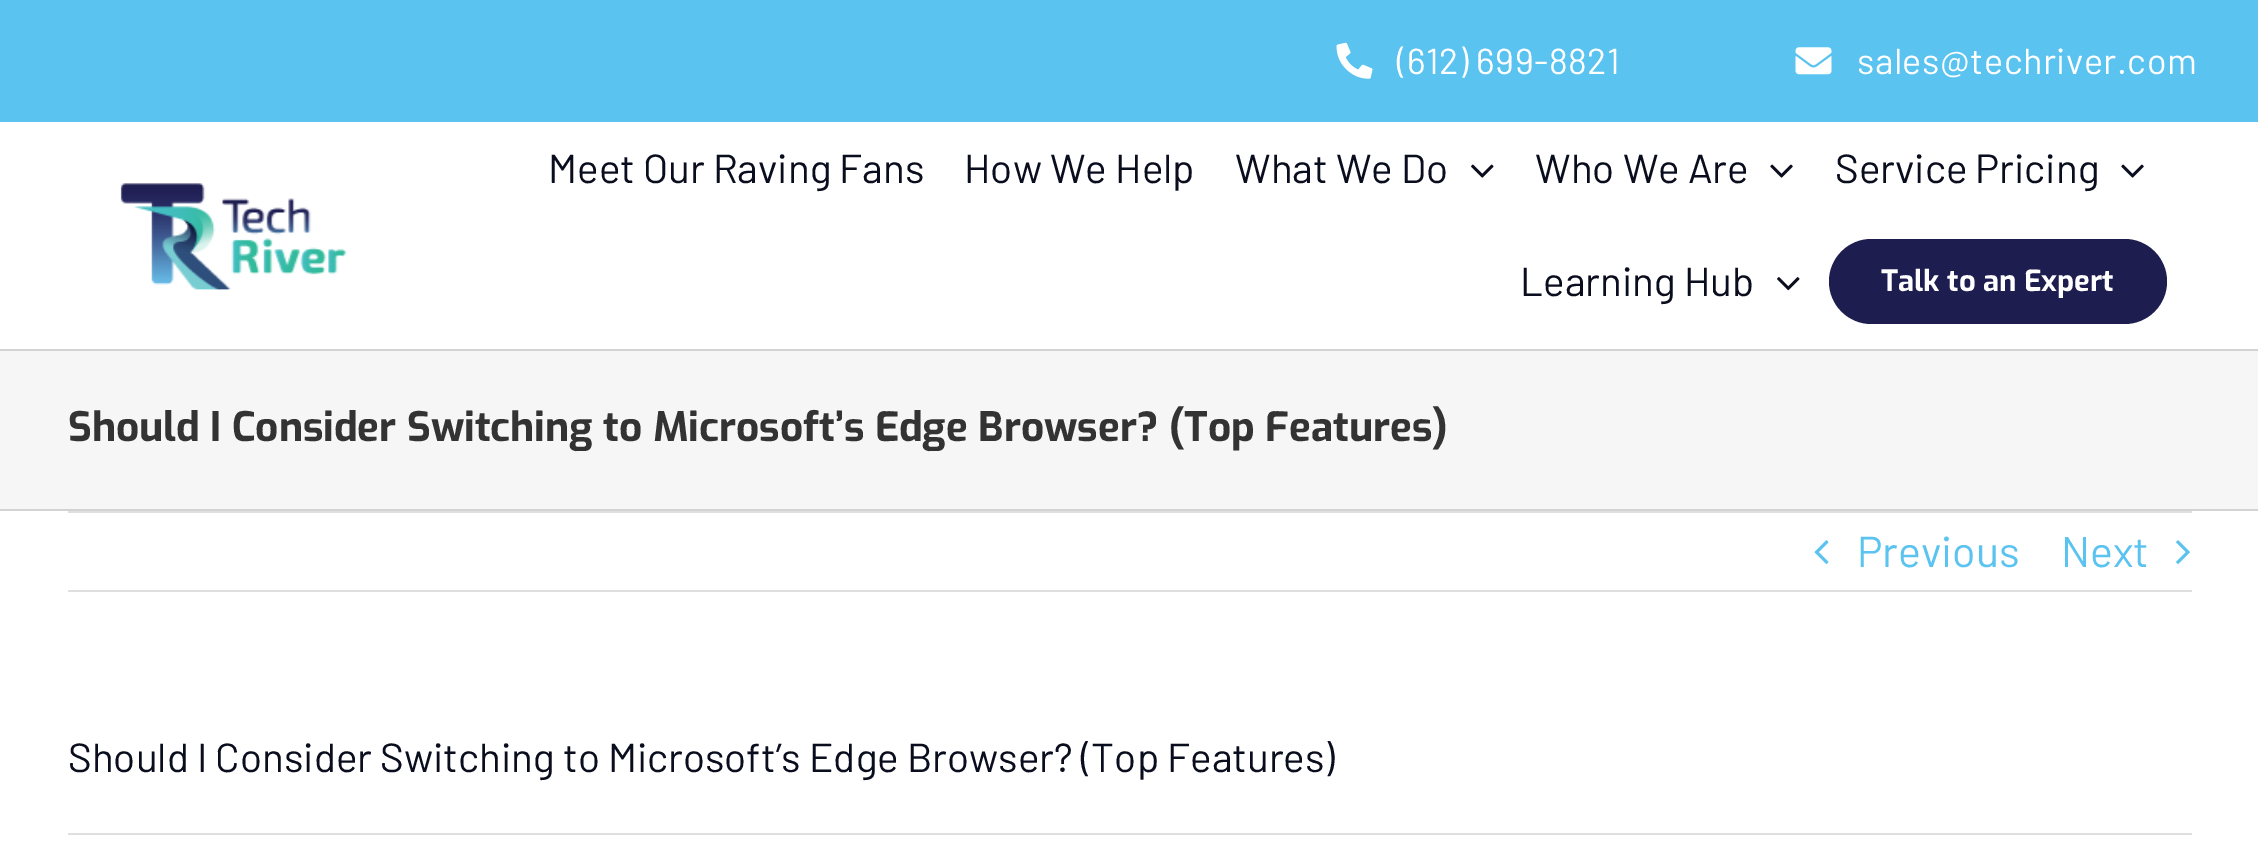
%!PS-Adobe-3.0
%%BoundingBox: 0 0 2258 846
%%LanguageLevel: 3
%%Pages: 1
%%EndComments
%%BeginProlog
/setink { dup -16 bitshift 255 div exch dup -8 bitshift 255 and 255 div exch 255 and 255 div setrgbcolor } def
/usefont { [ exch dup neg 0 0 3 -1 roll 0 0 ] selectfont } def
/rrect { 5 dict begin { /r /h /w /y /x } { exch def } forall
  x r add y moveto x w add y 2 copy h add r arct x w add y h add x 1 index r arct
  x y h add x y r arct x y 2 copy exch w add exch r arct closepath end } def
/drawimage { 5 dict begin { /h /w /y /x /name } { exch def } forall
  gsave x y translate w h scale
  w h 8 [w 0 0 h 0 0] name (r) file false 3 colorimage grestore end } def
%%EndProlog
%%BeginSetup
<< /PageSize [2258 846] >> setpagedevice
%%EndSetup
%%Page: 1 1
0 846 translate 1 -1 scale
4 setmiterlimit
16#FFFFFF setink
0 0 2258 846 rectfill
16#5AC3F0 setink
0 0 2258 122 rectfill
(img1.raw) 1336 42 37 37 drawimage
/Barlow-Regular 36 usefont
16#FFFFFF setink
1397 74 moveto 0.5 0 (\(612\) 699-8821) ashow
(img2.raw) 1795 47 37 28 drawimage
1857 74 moveto 0.5 0 (sales@techriver.com) ashow
(img3.raw) 120 183 227 107 drawimage
/Barlow-Regular 40.5 usefont
16#0A0D1D setink
[
    [(Meet Our Raving Fans) 548 183]
    [(How We Help) 964 183]
    [(What We Do) 1235 183]
] { aload pop moveto show } forall
(img4.raw) 1471 164 23 14 drawimage
1535 183 moveto (Who We Are) show
(img5.raw) 1770 164 23 14 drawimage
1835 183 moveto (Service Pricing) show
(img5.raw) 2121 164 23 14 drawimage
1520 296 moveto (Learning Hub) show
(img6.raw) 1777 277 23 14 drawimage
16#1E1D50 setink
1829 239 338 85 42.5 rrect fill
/Exo-Bold 29.25 usefont
16#FFFFFF setink
1881 291 moveto (Talk to an Expert) show
[
    [0 351 2258 158 16#F6F6F6]
    [0 349 2258 2 16#D2D3D4]
    [0 509 2258 2 16#D2D3D4]
] { aload pop setink rectfill } forall
/Exo-Bold 40.5 usefont
16#333333 setink
68 441 moveto (Should I Consider Switching to Microsoft’s Edge Browser? \(Top Features\)) show
16#E0DEDE setink
68 511 2124 2 rectfill
68 590 2124 2 rectfill
(img7.raw) 1814 540 15 24 drawimage
/Barlow-Regular 43 usefont
16#5AC3F0 setink
1857 567 moveto (Previous) show
2061 567 moveto (Next) show
(img8.raw) 2176 540 14 24 drawimage
/Barlow-Regular 40.5 usefont
16#0A0D1D setink
68 772 moveto (Should I Consider Switching to Microsoft’s Edge Browser? \(Top Features\)) show
16#E0DEDE setink
68 833 2124 2 rectfill
showpage
%%EOF
